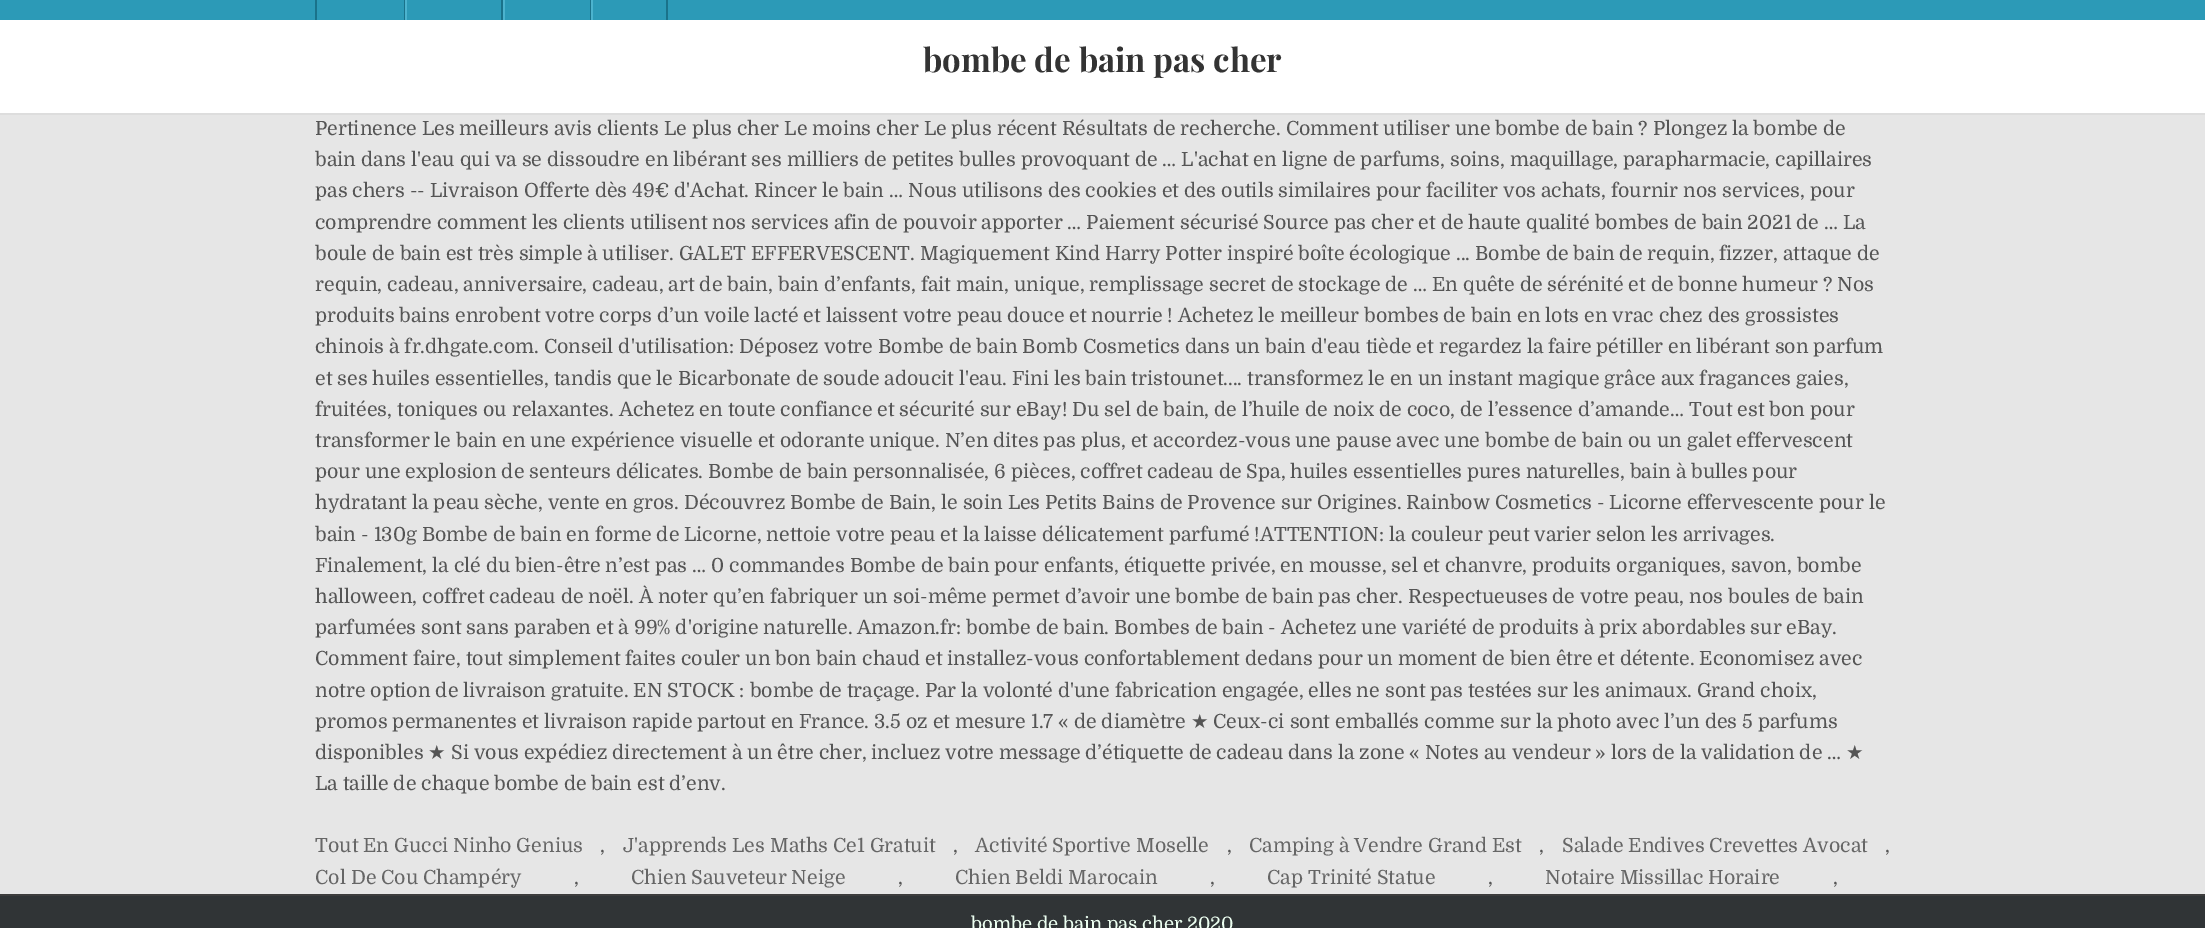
%!PS-Adobe-3.0
%%BoundingBox: 0 0 2205 928
%%LanguageLevel: 3
%%Pages: 1
%%EndComments
%%BeginProlog
/setink { dup -16 bitshift 255 div exch dup -8 bitshift 255 and 255 div exch 255 and 255 div setrgbcolor } def
/usefont { [ exch dup neg 0 0 3 -1 roll 0 0 ] selectfont } def
%%EndProlog
%%BeginSetup
<< /PageSize [2205 928] >> setpagedevice
%%EndSetup
%%Page: 1 1
0 928 translate 1 -1 scale
4 setmiterlimit
16#E6E6E6 setink
0 0 2205 928 rectfill
[
    [0 0 2205 20 16#2C9AB7]
    [404 0 1 20 16#1A728A]
    [315 0 2 20 16#1A728A]
    [501 0 2 20 16#1A728A]
    [405 0 2 20 16#4CB3CE]
    [590 0 1 20 16#1A728A]
    [503 0 2 20 16#4CB3CE]
    [666 0 2 20 16#1A728A]
    [591 0 2 20 16#4CB3CE]
    [0 20 2205 93 16#FFFFFF]
    [0 113 2205 2 16#DDDDDD]
] { aload pop setink rectfill } forall
/PlayfairDisplay-Bold 33 usefont
16#333333 setink
923 72 moveto (bombe de bain pas cher) show
/Domine-Regular 19.5 usefont
16#555555 setink
[
    [(Pertinence Les meilleurs avis clients Le plus cher Le moins cher Le plus récent Résultats de recherche. Comment utiliser une bombe de bain ? Plongez la bombe de) 315 135]
    [(bain dans l'eau qui va se dissoudre en libérant ses milliers de petites bulles provoquant de … L'achat en ligne de parfums, soins, maquillage, parapharmacie, capillaires) 315 166]
    [(pas chers -- Livraison Offerte dès 49€ d'Achat. Rincer le bain … Nous utilisons des cookies et des outils similaires pour faciliter vos achats, fournir nos services, pour) 315 197]
    [(comprendre comment les clients utilisent nos services afin de pouvoir apporter … Paiement sécurisé Source pas cher et de haute qualité bombes de bain 2021 de … La) 315 229]
    [(boule de bain est très simple à utiliser. GALET EFFERVESCENT. Magiquement Kind Harry Potter inspiré boîte écologique ... Bombe de bain de requin, fizzer, attaque de) 315 260]
    [(requin, cadeau, anniversaire, cadeau, art de bain, bain d’enfants, fait main, unique, remplissage secret de stockage de … En quête de sérénité et de bonne humeur ? Nos) 315 291]
    [(produits bains enrobent votre corps d’un voile lacté et laissent votre peau douce et nourrie ! Achetez le meilleur bombes de bain en lots en vrac chez des grossistes) 315 322]
    [(chinois à fr.dhgate.com. Conseil d'utilisation: Déposez votre Bombe de bain Bomb Cosmetics dans un bain d'eau tiède et regardez la faire pétiller en libérant son parfum) 315 353]
    [(et ses huiles essentielles, tandis que le Bicarbonate de soude adoucit l'eau. Fini les bain tristounet.... transformez le en un instant magique grâce aux fragances gaies,) 315 385]
    [(fruitées, toniques ou relaxantes. Achetez en toute confiance et sécurité sur eBay! Du sel de bain, de l’huile de noix de coco, de l’essence d’amande… Tout est bon pour) 315 416]
    [(transformer le bain en une expérience visuelle et odorante unique. N’en dites pas plus, et accordez-vous une pause avec une bombe de bain ou un galet effervescent) 315 447]
    [(pour une explosion de senteurs délicates. Bombe de bain personnalisée, 6 pièces, coffret cadeau de Spa, huiles essentielles pures naturelles, bain à bulles pour) 315 478]
    [(hydratant la peau sèche, vente en gros. Découvrez Bombe de Bain, le soin Les Petits Bains de Provence sur Origines. Rainbow Cosmetics - Licorne effervescente pour le) 315 509]
    [(bain - 130g Bombe de bain en forme de Licorne, nettoie votre peau et la laisse délicatement parfumé !ATTENTION: la couleur peut varier selon les arrivages.) 315 541]
    [(Finalement, la clé du bien-être n’est pas … 0 commandes Bombe de bain pour enfants, étiquette privée, en mousse, sel et chanvre, produits organiques, savon, bombe) 315 572]
    [(halloween, coffret cadeau de noël. À noter qu’en fabriquer un soi-même permet d’avoir une bombe de bain pas cher. Respectueuses de votre peau, nos boules de bain) 315 603]
    [(parfumées sont sans paraben et à 99% d'origine naturelle. Amazon.fr: bombe de bain. Bombes de bain - Achetez une variété de produits à prix abordables sur eBay.) 315 634]
    [(Comment faire, tout simplement faites couler un bon bain chaud et installez-vous confortablement dedans pour un moment de bien être et détente. Economisez avec) 315 665]
    [(notre option de livraison gratuite. EN STOCK : bombe de traçage. Par la volonté d'une fabrication engagée, elles ne sont pas testées sur les animaux. Grand choix,) 315 697]
    [(promos permanentes et livraison rapide partout en France. 3.5 oz et mesure 1.7 « de diamètre) 315 728]
] { aload pop moveto show } forall
/DejaVuSans-Regular 19.5 usefont
1191 728 moveto (★) show
/Domine-Regular 19.5 usefont
1213 728 moveto (Ceux-ci sont emballés comme sur la photo avec l’un des 5 parfums) show
315 759 moveto (disponibles) show
/DejaVuSans-Regular 19.5 usefont
428 759 moveto (★) show
/Domine-Regular 19.5 usefont
451 759 moveto (Si vous expédiez directement à un être cher, incluez votre message d’étiquette de cadeau dans la zone « Notes au vendeur » lors de la validation de …) show
/DejaVuSans-Regular 19.5 usefont
1846 759 moveto (★) show
/Domine-Regular 19.5 usefont
315 790 moveto (La taille de chaque bombe de bain est d’env.) show
16#666666 setink
315 852 moveto (Tout En Gucci Ninho Genius) show
16#555555 setink
600 852 moveto (,) show
16#666666 setink
623 852 moveto (J'apprends Les Maths Ce1 Gratuit) show
16#555555 setink
953 852 moveto (,) show
16#666666 setink
975 852 moveto (Activité Sportive Moselle) show
16#555555 setink
1227 852 moveto (,) show
16#666666 setink
1249 852 moveto (Camping à Vendre Grand Est) show
16#555555 setink
1539 852 moveto (,) show
16#666666 setink
1562 852 moveto (Salade Endives Crevettes Avocat) show
16#555555 setink
1885 852 moveto (,) show
16#666666 setink
315 884 moveto (Col De Cou Champéry) show
16#555555 setink
574 884 moveto (,) show
16#666666 setink
631 884 moveto (Chien Sauveteur Neige) show
16#555555 setink
898 884 moveto (,) show
16#666666 setink
955 884 moveto (Chien Beldi Marocain) show
16#555555 setink
1210 884 moveto (,) show
16#666666 setink
1267 884 moveto (Cap Trinité Statue) show
16#555555 setink
1488 884 moveto (,) show
16#666666 setink
1545 884 moveto (Notaire Missillac Horaire) show
16#555555 setink
1833 884 moveto (,) show
16#303436 setink
0 896 2205 32 rectfill
16#3D3D3D setink
0 894 2205 2 rectfill
/Domine-Regular 18.5 usefont
16#ECFFF1 setink
971 930 moveto (bombe de bain pas cher 2020) show
showpage
%%EOF
